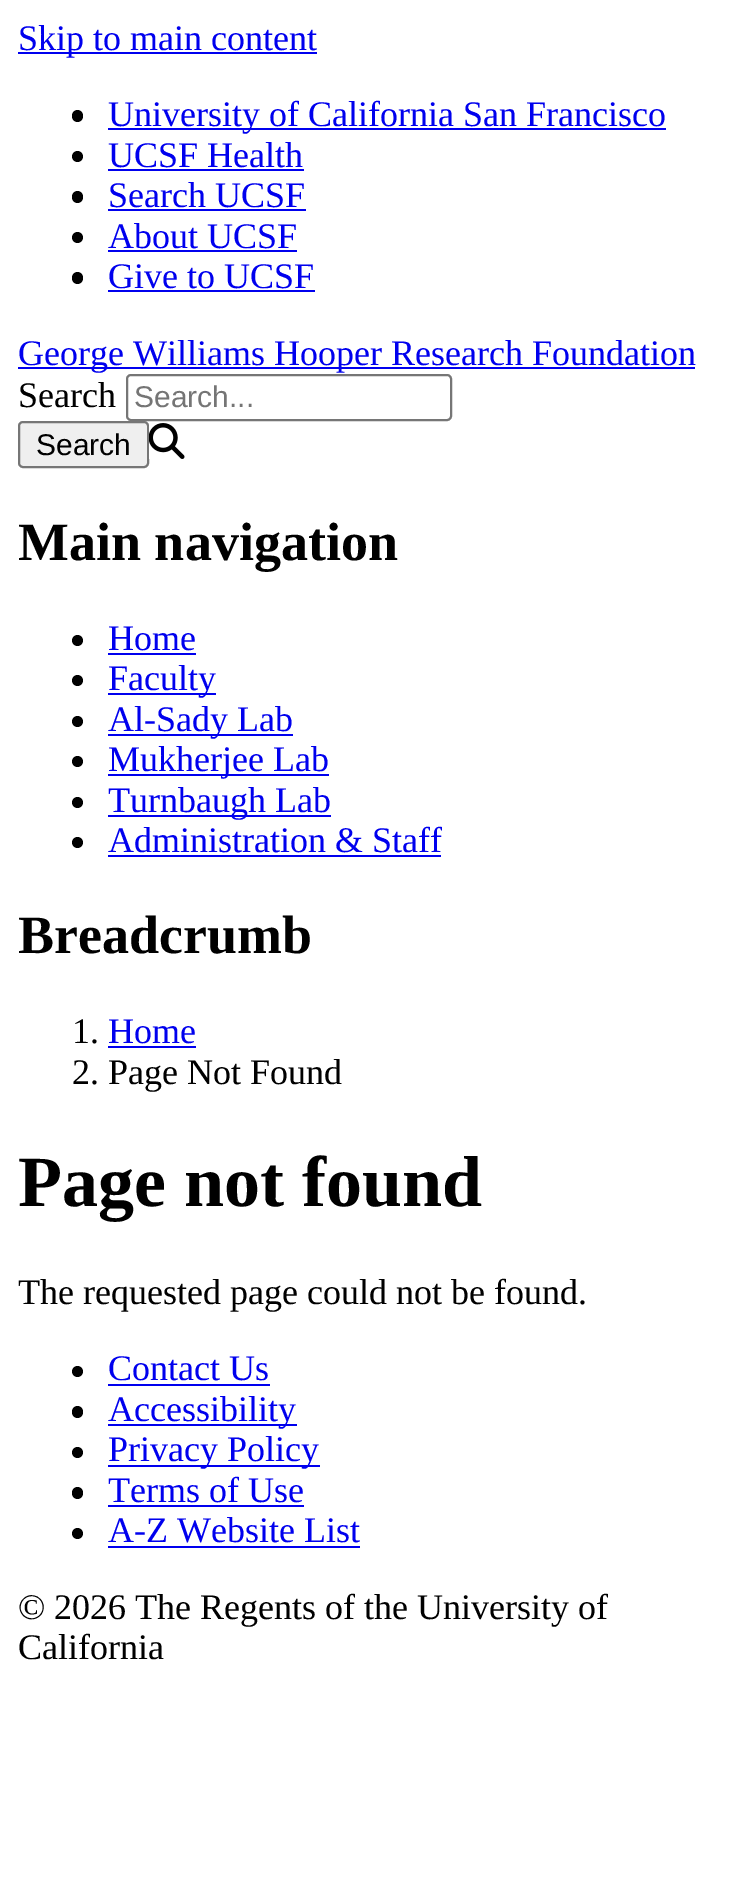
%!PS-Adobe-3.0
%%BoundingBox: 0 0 736 1880
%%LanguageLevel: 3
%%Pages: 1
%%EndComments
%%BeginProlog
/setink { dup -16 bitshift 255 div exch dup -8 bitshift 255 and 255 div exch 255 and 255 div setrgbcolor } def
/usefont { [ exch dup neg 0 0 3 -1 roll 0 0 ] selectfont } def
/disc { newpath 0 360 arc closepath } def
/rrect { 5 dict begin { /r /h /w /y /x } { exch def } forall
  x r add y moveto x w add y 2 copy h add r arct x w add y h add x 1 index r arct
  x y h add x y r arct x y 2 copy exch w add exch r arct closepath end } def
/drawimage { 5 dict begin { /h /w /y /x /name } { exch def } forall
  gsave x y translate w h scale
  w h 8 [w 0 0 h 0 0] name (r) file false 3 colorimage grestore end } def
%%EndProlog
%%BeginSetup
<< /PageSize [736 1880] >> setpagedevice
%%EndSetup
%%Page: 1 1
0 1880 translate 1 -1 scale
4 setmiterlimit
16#FFFFFF setink
0 0 736 1880 rectfill
16#0000EE setink
18 52 299 2 rectfill
/LiberationSerif-Regular 36 usefont
18 50 moveto (Skip to main content) show
16#000000 setink
72 110 11 12 5.5 rrect fill
16#0000EE setink
108 128 558 2 rectfill
108 126 moveto (University of California San Francisco) show
16#000000 setink
77.5 156.5 5.5 disc fill
16#0000EE setink
108 167 moveto (UCSF Health) show
108 169 196 2 rectfill
16#000000 setink
72 191 11 12 5.5 rrect fill
16#0000EE setink
108 207 moveto (Search UCSF) show
108 209 198 2 rectfill
16#000000 setink
77.5 237.5 5.5 disc fill
16#0000EE setink
108 248 moveto (About UCSF) show
108 250 189 2 rectfill
16#000000 setink
72 272 11 12 5.5 rrect fill
16#0000EE setink
108 288 moveto (Give to UCSF) show
108 290 207 2 rectfill
18 367 677 2 rectfill
18 365 moveto (George Williams Hooper Research Foundation) show
16#000000 setink
18 407 moveto (Search) show
16#767676 setink
2 setlinewidth
127 375 324 45 4 rrect stroke
/LiberationSans-Regular 30 usefont
16#757575 setink
134 407 moveto (Search...) show
16#EFEFEF setink
19 422 129 45 4 rrect gsave fill grestore
16#767676 setink
stroke
16#000000 setink
36 455 moveto (Search) show
(img1.raw) 149 423 36 36 drawimage
/LiberationSerif-Bold 54 usefont
18 560 moveto (Main navigation) show
77.5 640.5 5.5 disc fill
/LiberationSerif-Regular 36 usefont
16#0000EE setink
108 650 moveto (Home) show
108 653 88 2 rectfill
16#000000 setink
77.5 680.5 5.5 disc fill
16#0000EE setink
108 693 108 2 rectfill
108 690 moveto (Faculty) show
16#000000 setink
77.5 721.5 5.5 disc fill
16#0000EE setink
108 734 185 2 rectfill
108 731 moveto (Al-Sady Lab) show
16#000000 setink
77.5 761.5 5.5 disc fill
16#0000EE setink
108 774 221 2 rectfill
108 771 moveto (Mukherjee Lab) show
16#000000 setink
77.5 802.5 5.5 disc fill
16#0000EE setink
108 815 223 2 rectfill
108 812 moveto (Turnbaugh Lab) show
16#000000 setink
77.5 842.5 5.5 disc fill
16#0000EE setink
108 852 moveto (Administration & Staff) show
108 855 333 2 rectfill
/LiberationSerif-Bold 54 usefont
16#000000 setink
18 953 moveto (Breadcrumb) show
/LiberationSerif-Regular 36 usefont
72 1043 moveto (1.) show
16#0000EE setink
108 1043 moveto (Home) show
108 1046 88 2 rectfill
16#000000 setink
72 1084 moveto (2. Page Not Found) show
/LiberationSerif-Bold 72 usefont
18 1206 moveto (Page not found) show
/LiberationSerif-Regular 36 usefont
18 1304 moveto (The requested page could not be found.) show
77.5 1371.5 5.5 disc fill
16#0000EE setink
108 1380 moveto (Contact Us) show
108 1384 162 2 rectfill
16#000000 setink
72 1406 11 12 5.5 rrect fill
16#0000EE setink
108 1424 189 2 rectfill
108 1421 moveto (Accessibility) show
16#000000 setink
77.5 1452.5 5.5 disc fill
16#0000EE setink
108 1465 212 2 rectfill
108 1461 moveto (Privacy Policy) show
16#000000 setink
72 1487 11 12 5.5 rrect fill
16#0000EE setink
108 1502 moveto (Terms of Use) show
108 1505 196 2 rectfill
16#000000 setink
77.5 1533.5 5.5 disc fill
16#0000EE setink
108 1542 moveto (A-Z Website List) show
108 1546 252 2 rectfill
16#000000 setink
18 1619 moveto (© 2026 The Regents of the University of) show
18 1659 moveto (California) show
showpage
%%EOF
